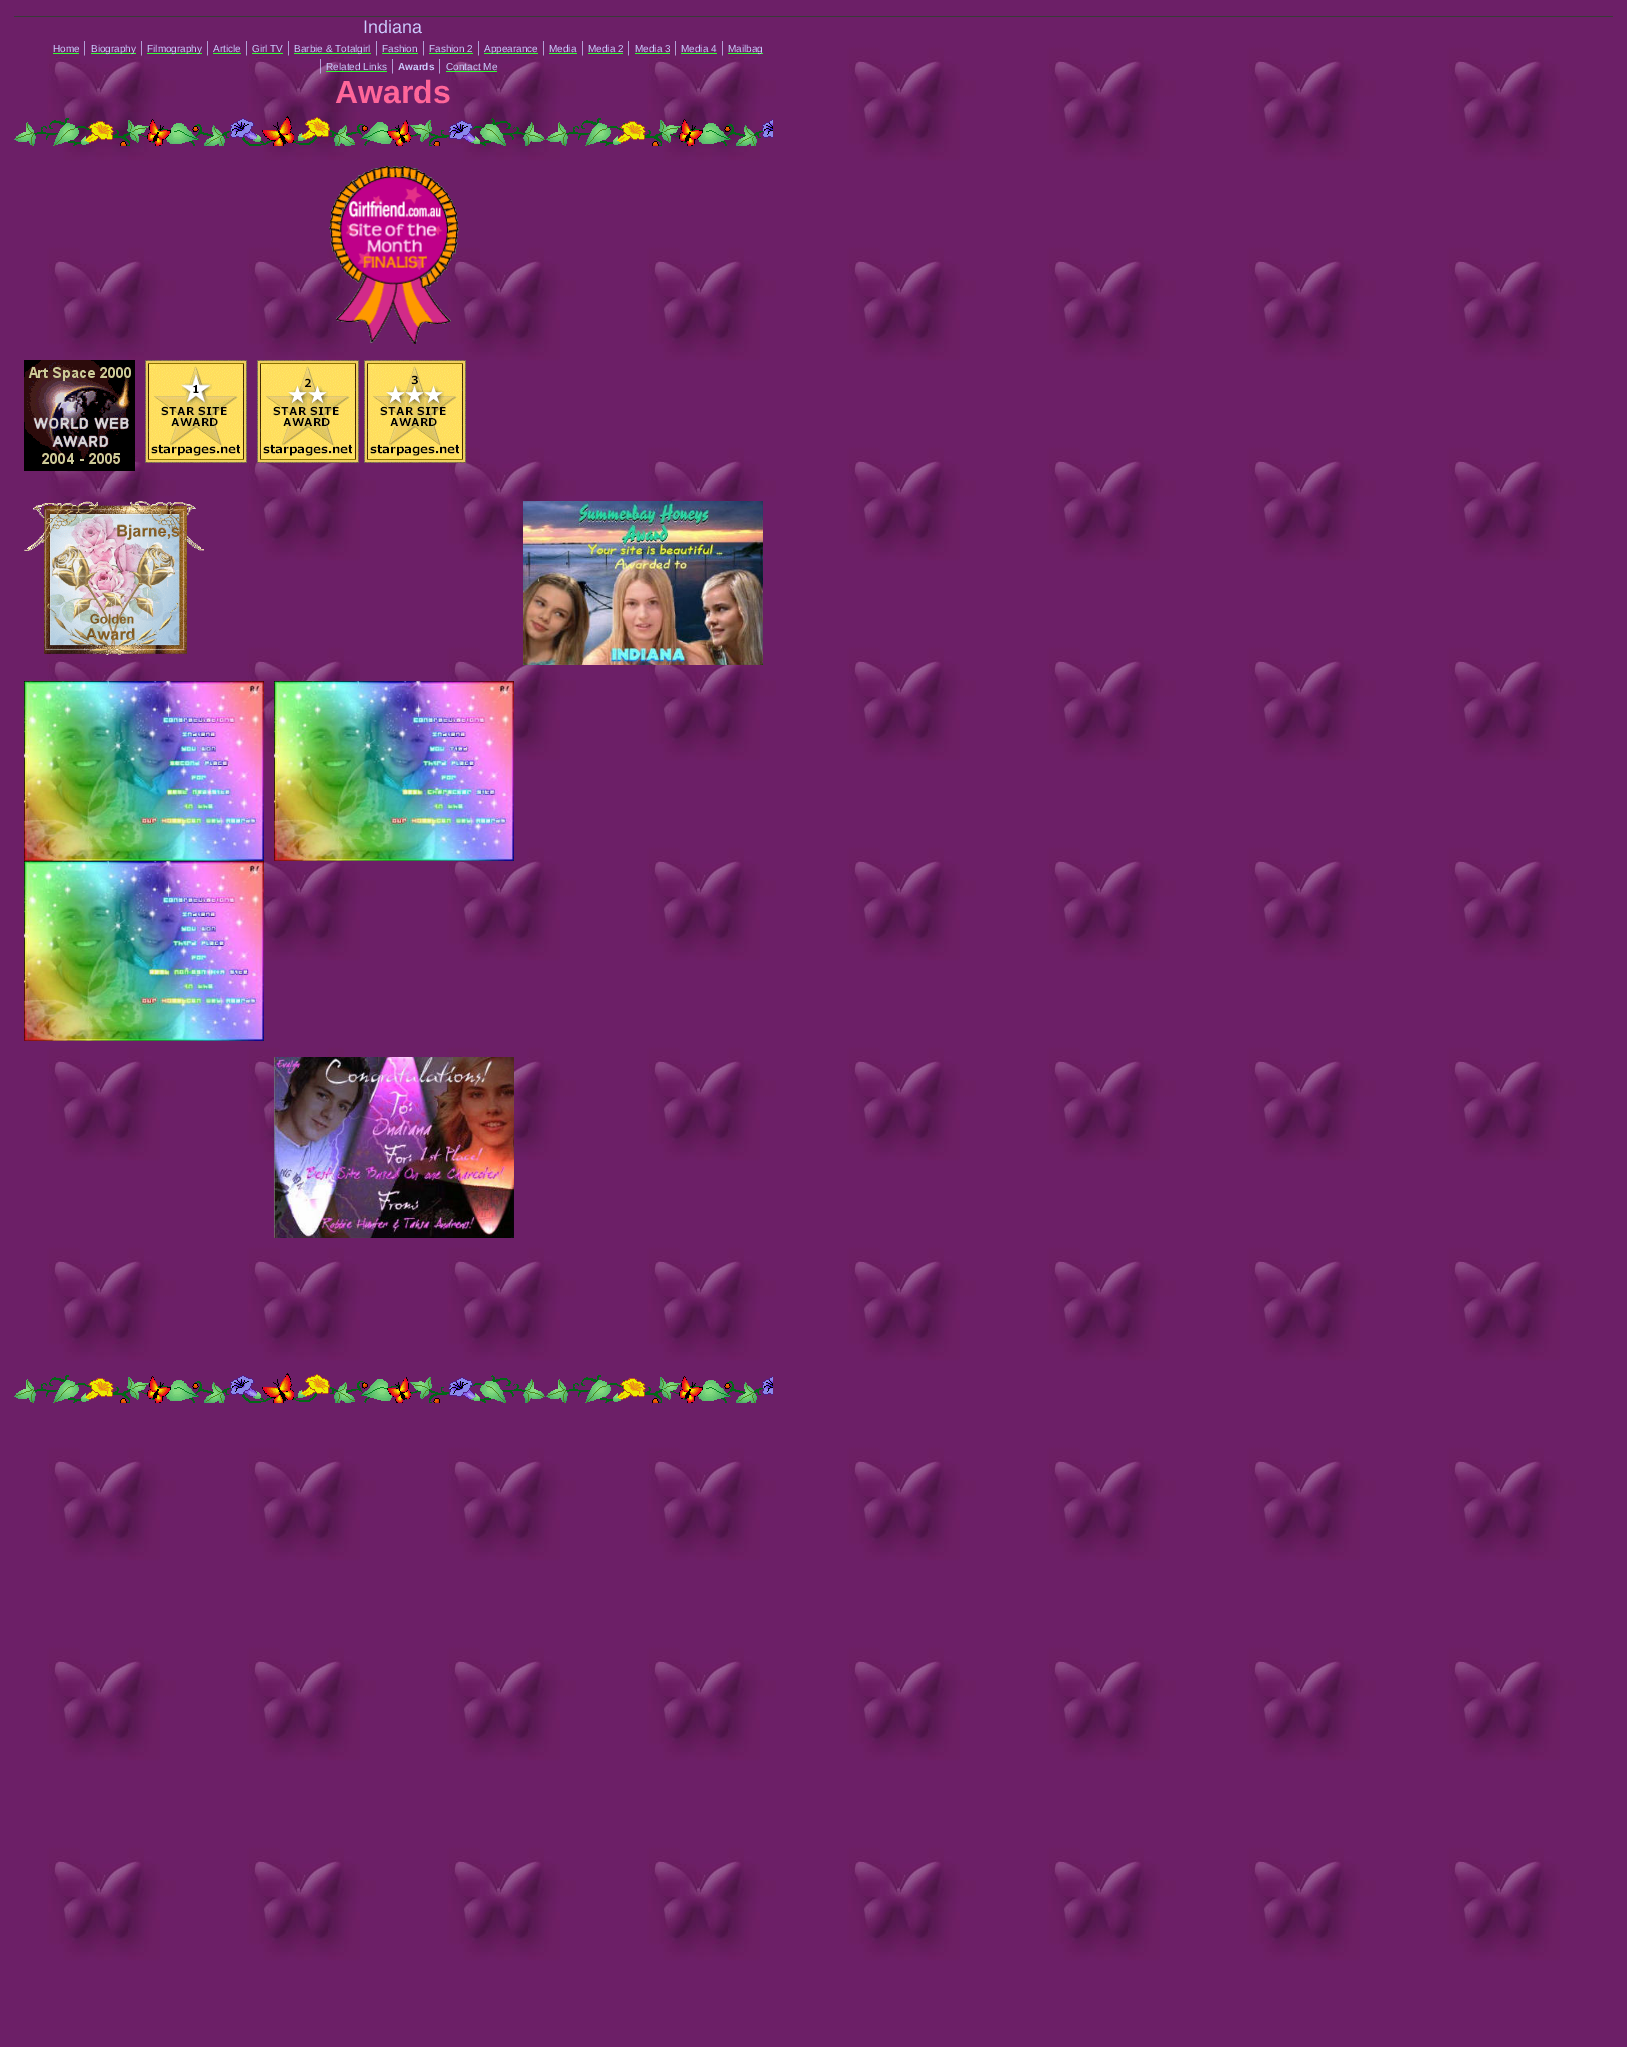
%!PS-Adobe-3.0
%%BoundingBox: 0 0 1627 2047
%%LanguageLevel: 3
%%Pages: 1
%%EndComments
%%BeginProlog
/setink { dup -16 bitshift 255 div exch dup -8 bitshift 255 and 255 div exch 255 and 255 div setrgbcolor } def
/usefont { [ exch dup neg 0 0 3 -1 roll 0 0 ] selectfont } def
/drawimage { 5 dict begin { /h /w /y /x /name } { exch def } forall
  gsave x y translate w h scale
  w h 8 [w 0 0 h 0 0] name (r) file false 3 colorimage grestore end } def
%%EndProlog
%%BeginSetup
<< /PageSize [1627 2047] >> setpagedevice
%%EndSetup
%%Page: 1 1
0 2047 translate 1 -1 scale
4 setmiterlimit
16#FFFFFF setink
0 0 1627 2047 rectfill
(img1.raw) 0 0 1627 2047 drawimage
16#393939 setink
14 16 1599 1 rectfill
/LiberationSans-Regular 18 usefont
16#CCCCFF setink
363 33 moveto (Indiana) show
/LiberationSans-Regular 10 usefont
53 52 moveto (Home) show
16#33FF33 setink
53 53 26 1 rectfill
/LiberationSerif-Regular 16 usefont
16#CCCCFF setink
83 52 moveto (|) show
16#33FF33 setink
91 53 45 1 rectfill
/LiberationSans-Regular 10 usefont
16#CCCCFF setink
91 52 moveto (Biography) show
/LiberationSerif-Regular 16 usefont
140 52 moveto (|) show
16#33FF33 setink
147 53 55 1 rectfill
/LiberationSans-Regular 10 usefont
16#CCCCFF setink
147 52 moveto (Filmography) show
/LiberationSerif-Regular 16 usefont
206 52 moveto (|) show
/LiberationSans-Regular 10 usefont
213 52 moveto (Article) show
16#33FF33 setink
213 53 28 1 rectfill
/LiberationSerif-Regular 16 usefont
16#CCCCFF setink
245 52 moveto (|) show
/LiberationSans-Regular 10 usefont
252 52 moveto (Girl TV) show
16#33FF33 setink
252 53 31 1 rectfill
/LiberationSerif-Regular 16 usefont
16#CCCCFF setink
287 52 moveto (|) show
16#33FF33 setink
294 53 77 1 rectfill
/LiberationSans-Regular 10 usefont
16#CCCCFF setink
294 52 moveto (Barbie & Totalgirl) show
/LiberationSerif-Regular 16 usefont
375 52 moveto (|) show
/LiberationSans-Regular 10 usefont
382 52 moveto (Fashion) show
16#33FF33 setink
382 53 36 1 rectfill
/LiberationSerif-Regular 16 usefont
16#CCCCFF setink
422 52 moveto (|) show
/LiberationSans-Regular 10 usefont
429 52 moveto (Fashion 2) show
16#33FF33 setink
429 53 44 1 rectfill
/LiberationSerif-Regular 16 usefont
16#CCCCFF setink
477 52 moveto (|) show
16#33FF33 setink
484 53 54 1 rectfill
/LiberationSans-Regular 10 usefont
16#CCCCFF setink
484 52 moveto (Appearance) show
/LiberationSerif-Regular 16 usefont
542 52 moveto (|) show
/LiberationSans-Regular 10 usefont
549 52 moveto (Media) show
16#33FF33 setink
549 53 28 1 rectfill
/LiberationSerif-Regular 16 usefont
16#CCCCFF setink
581 52 moveto (|) show
/LiberationSans-Regular 10 usefont
588 52 moveto (Media 2) show
16#33FF33 setink
588 53 35 1 rectfill
/LiberationSerif-Regular 16 usefont
16#CCCCFF setink
627 52 moveto (|) show
/LiberationSans-Regular 10 usefont
635 52 moveto (Media 3) show
16#33FF33 setink
635 53 35 1 rectfill
/LiberationSerif-Regular 16 usefont
16#CCCCFF setink
674 52 moveto (|) show
/LiberationSans-Regular 10 usefont
681 52 moveto (Media 4) show
16#33FF33 setink
681 53 36 1 rectfill
/LiberationSerif-Regular 16 usefont
16#CCCCFF setink
721 52 moveto (|) show
16#33FF33 setink
728 53 35 1 rectfill
/LiberationSans-Regular 10 usefont
16#CCCCFF setink
728 52 moveto (Mailbag) show
/LiberationSerif-Regular 16 usefont
319 70 moveto (|) show
/LiberationSans-Regular 10 usefont
326 70 moveto (Related Links) show
16#33FF33 setink
326 71 61 1 rectfill
/LiberationSerif-Regular 16 usefont
16#CCCCFF setink
391 70 moveto (|) show
/LiberationSans-Bold 10 usefont
398 70 moveto (Awards) show
/LiberationSerif-Regular 16 usefont
438 70 moveto (|) show
/LiberationSans-Regular 10 usefont
446 70 moveto (Contact Me) show
16#33FF33 setink
446 71 51 1 rectfill
/LiberationSans-Bold 32 usefont
16#FF6699 setink
335 103 moveto (Awards) show
(img2.raw) 14 116 759 30 drawimage
(img3.raw) 329 166 130 178 drawimage
(img4.raw) 24 360 111 111 drawimage
(img5.raw) 145 360 102 103 drawimage
(img6.raw) 257 360 102 103 drawimage
(img7.raw) 364 360 102 103 drawimage
(img8.raw) 24 501 180 154 drawimage
(img9.raw) 523 501 240 164 drawimage
(img10.raw) 24 681 240 180 drawimage
(img11.raw) 274 681 240 180 drawimage
(img12.raw) 24 861 240 180 drawimage
(img13.raw) 274 1057 240 181 drawimage
(img14.raw) 14 1373 759 30 drawimage
showpage
%%EOF
